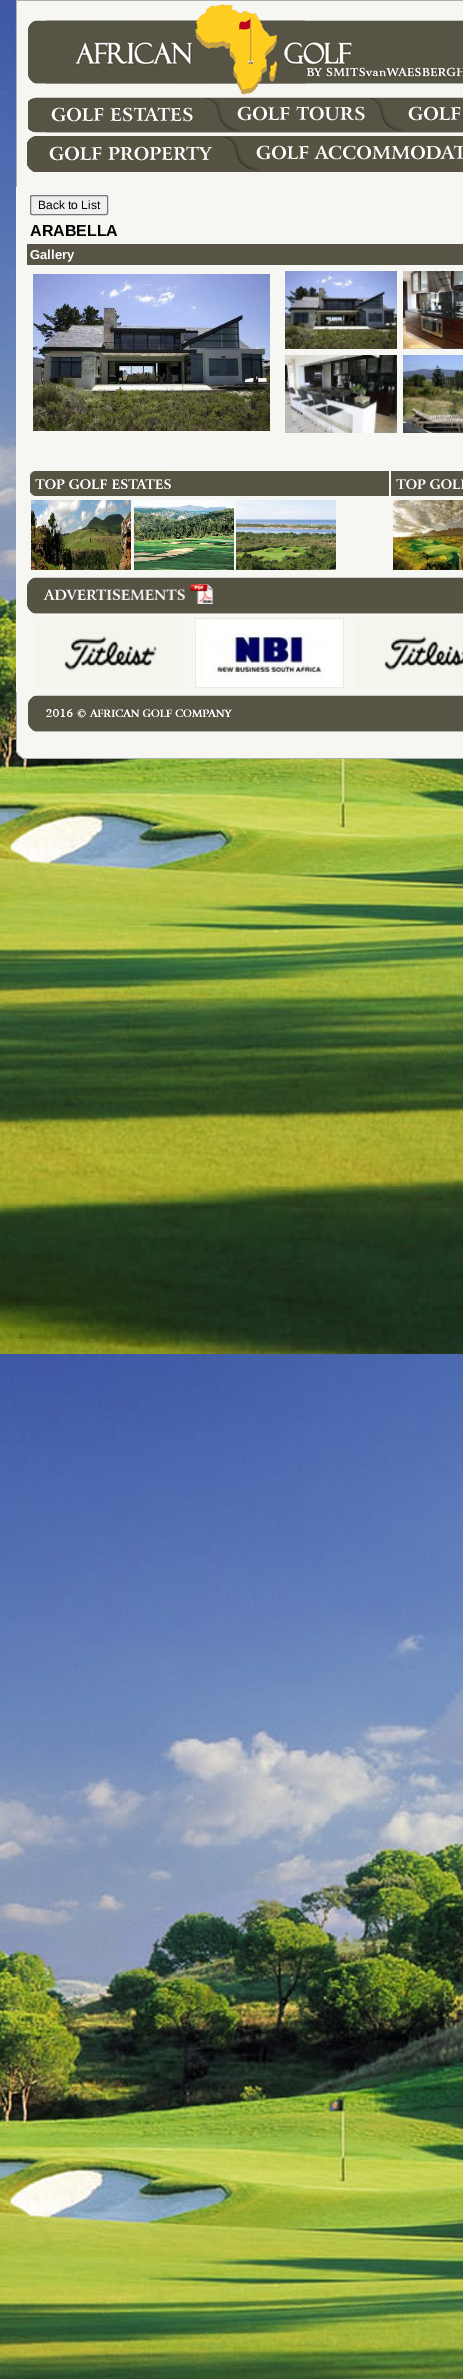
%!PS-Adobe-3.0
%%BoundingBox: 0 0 463 2379
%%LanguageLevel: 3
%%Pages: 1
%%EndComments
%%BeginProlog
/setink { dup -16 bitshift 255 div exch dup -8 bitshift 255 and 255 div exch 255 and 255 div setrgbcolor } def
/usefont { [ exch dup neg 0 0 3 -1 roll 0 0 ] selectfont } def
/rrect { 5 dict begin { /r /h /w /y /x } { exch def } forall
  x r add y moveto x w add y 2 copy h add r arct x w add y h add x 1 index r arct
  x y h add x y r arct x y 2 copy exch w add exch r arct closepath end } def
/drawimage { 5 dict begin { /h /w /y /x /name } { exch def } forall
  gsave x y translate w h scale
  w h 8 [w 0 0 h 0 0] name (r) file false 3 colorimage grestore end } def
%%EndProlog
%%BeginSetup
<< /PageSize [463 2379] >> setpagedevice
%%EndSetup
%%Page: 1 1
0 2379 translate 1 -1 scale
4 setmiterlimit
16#FFFFFF setink
0 0 463 2379 rectfill
(img1.raw) 0 0 463 2379 drawimage
(img2.raw) 16 0 447 98 drawimage
(img3.raw) 16 98 30 35 drawimage
(img4.raw) 46 98 188 35 drawimage
(img5.raw) 234 98 169 35 drawimage
(img6.raw) 403 98 60 35 drawimage
16#F6F6F3 setink
17 133 446 54 rectfill
16#AFAFAF setink
16 133 1 54 rectfill
(img7.raw) 27 136 222 36 drawimage
(img8.raw) 249 136 214 36 drawimage
16#F6F6F3 setink
16 187 11 505 rectfill
27 187 436 505 rectfill
16#EFEFEF setink
30.5 195.5 77 19 1.5 rrect gsave fill grestore
16#767676 setink
stroke
/LiberationSans-Regular 12 usefont
16#000000 setink
38 209 moveto (Back to List) show
/LiberationSans-Bold 16 usefont
30 236 moveto (ARABELLA) show
16#575445 setink
27 244 436 21 rectfill
/LiberationSans-Bold 13 usefont
16#FFFFFF setink
30 259 moveto (Gallery) show
(img9.raw) 33 274 237 157 drawimage
(img10.raw) 285 271 112 78 drawimage
(img11.raw) 403 271 60 78 drawimage
(img12.raw) 285 355 112 78 drawimage
(img13.raw) 403 355 60 78 drawimage
16#575445 setink
173 471 216 25 rectfill
(img14.raw) 29 471 144 25 drawimage
391 471 72 25 rectfill
(img15.raw) 396 479 67 10 drawimage
(img16.raw) 31 500 100 70 drawimage
(img17.raw) 134 500 100 70 drawimage
(img18.raw) 236 500 100 70 drawimage
(img19.raw) 393 500 70 70 drawimage
(img20.raw) 27 577 436 37 drawimage
(img21.raw) 35 618 149 70 drawimage
(img22.raw) 195 618 149 70 drawimage
(img23.raw) 355 618 108 70 drawimage
(img24.raw) 16 692 447 67 drawimage
showpage
%%EOF
